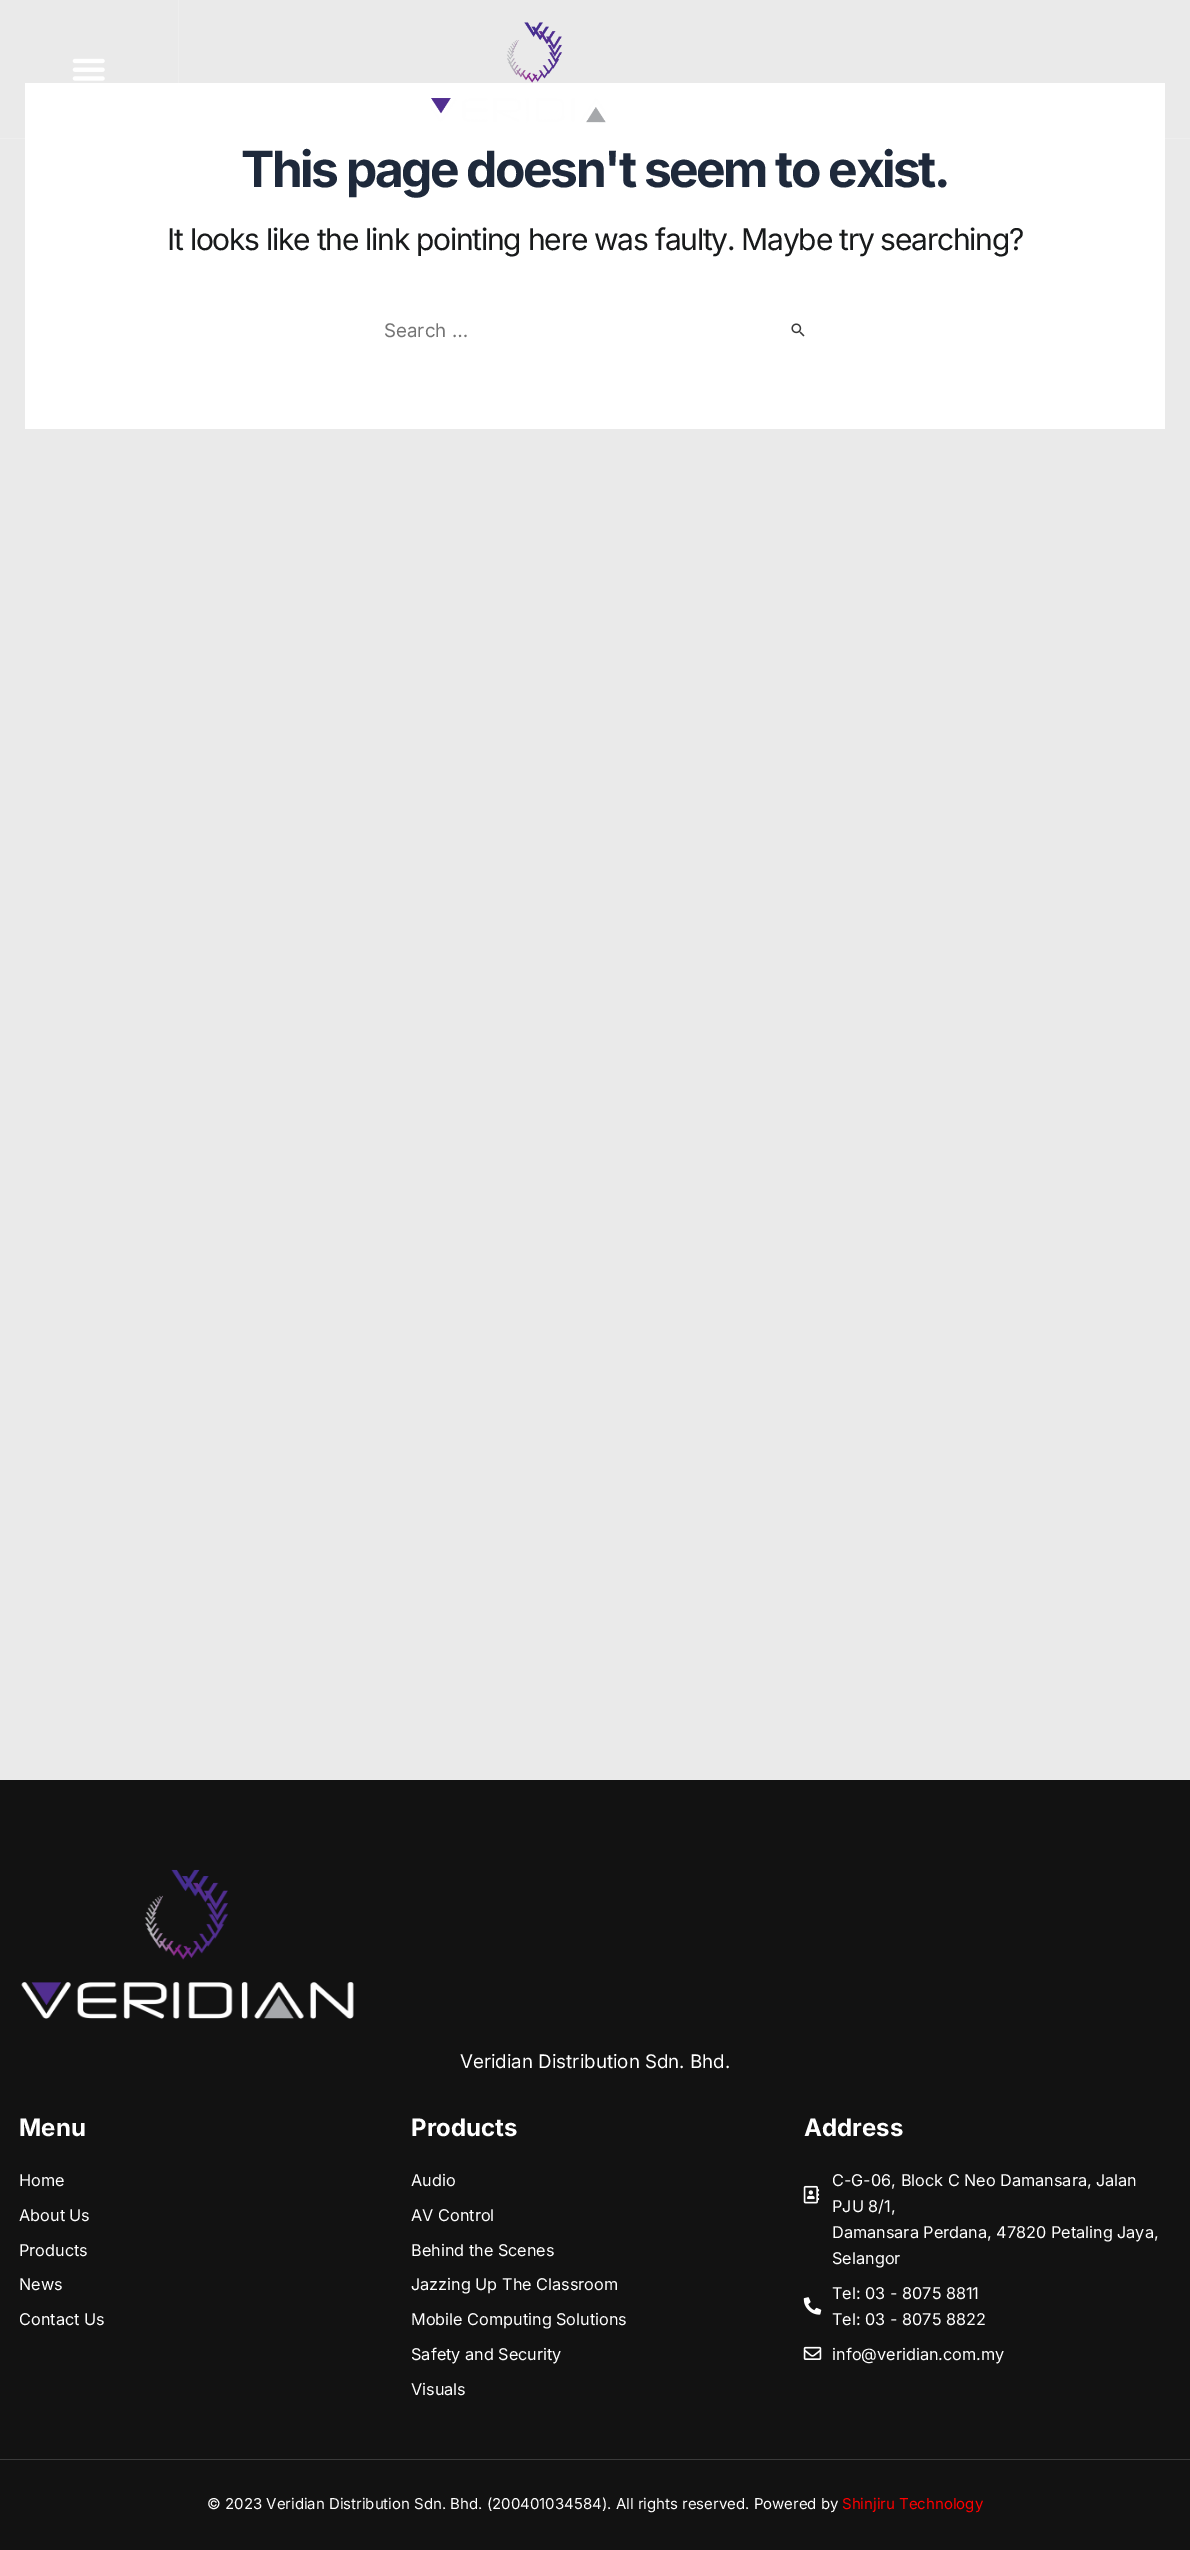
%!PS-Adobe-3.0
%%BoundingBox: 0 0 1190 2550
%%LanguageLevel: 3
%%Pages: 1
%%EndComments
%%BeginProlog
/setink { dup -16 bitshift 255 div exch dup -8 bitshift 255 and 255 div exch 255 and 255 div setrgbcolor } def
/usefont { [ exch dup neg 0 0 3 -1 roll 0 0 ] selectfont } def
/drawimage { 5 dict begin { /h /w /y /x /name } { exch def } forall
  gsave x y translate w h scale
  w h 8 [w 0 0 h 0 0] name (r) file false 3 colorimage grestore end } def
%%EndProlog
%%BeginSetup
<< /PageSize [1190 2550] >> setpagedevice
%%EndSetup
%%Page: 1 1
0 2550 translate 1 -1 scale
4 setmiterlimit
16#EAEAEA setink
0 0 1190 2550 rectfill
16#EEEEEE setink
178 0 1 83 rectfill
0 138 1190 1 rectfill
(img1.raw) 72 58 33 23 drawimage
16#FFFFFF setink
25 83 1140 346 rectfill
(img2.raw) 431 22 175 101 drawimage
/Inter-Bold 49.75 usefont
16#1E293B setink
241 187 moveto -2.5 0 (This page doesn't seem to exist.) ashow
/Inter-Regular 30 usefont
16#181A1B setink
167 250 moveto -1.25 0 (It looks like the link pointing here was faulty. Maybe try searching?) ashow
/Inter-Regular 18.75 usefont
16#757575 setink
384 337 moveto (Search …) show
(img3.raw) 791 323 14 14 drawimage
16#121212 setink
0 1780 1190 770 rectfill
16#3A3A3A setink
0 2459 1190 1 rectfill
(img4.raw) 21 1869 333 150 drawimage
16#FFFFFF setink
460 2068 moveto (Veridian Distribution Sdn. Bhd.) show
/Inter-Bold 24 usefont
19 2136 moveto (Menu) show
/Inter-Regular 16.25 usefont
[
    [(Home) 19 2186]
    [(About Us) 19 2221]
    [(Products) 19 2256]
    [(News) 19 2290]
    [(Contact Us) 19 2325]
] { aload pop moveto show } forall
/Inter-Bold 24 usefont
411 2136 moveto (Products) show
/Inter-Regular 16.25 usefont
[
    [(Audio) 411 2186]
    [(AV Control) 411 2221]
    [(Behind the Scenes) 411 2256]
    [(Jazzing Up The Classroom) 411 2290]
    [(Mobile Computing Solutions) 411 2325]
    [(Safety and Security) 411 2360]
    [(Visuals) 411 2395]
] { aload pop moveto show } forall
/Inter-Bold 24 usefont
804 2136 moveto (Address) show
(img5.raw) 803 2185 17 19 drawimage
/Inter-Regular 16.25 usefont
[
    [(C-G-06, Block C Neo Damansara, Jalan) 832 2186]
    [(PJU 8/1,) 832 2212]
    [(Damansara Perdana, 47820 Petaling Jaya,) 832 2238]
    [(Selangor) 832 2264]
] { aload pop moveto show } forall
(img6.raw) 803 2297 19 18 drawimage
832 2299 moveto (Tel: 03 - 8075 8811) show
832 2325 moveto (Tel: 03 - 8075 8822) show
(img7.raw) 803 2346 19 14 drawimage
832 2360 moveto (info@veridian.com.my) show
/Inter-Regular 15 usefont
207 2509 moveto (© 2023 Veridian Distribution Sdn. Bhd. \(200401034584\). All rights reserved. Powered by) show
16#FF0000 setink
842 2509 moveto (Shinjiru Technology) show
showpage
%%EOF
